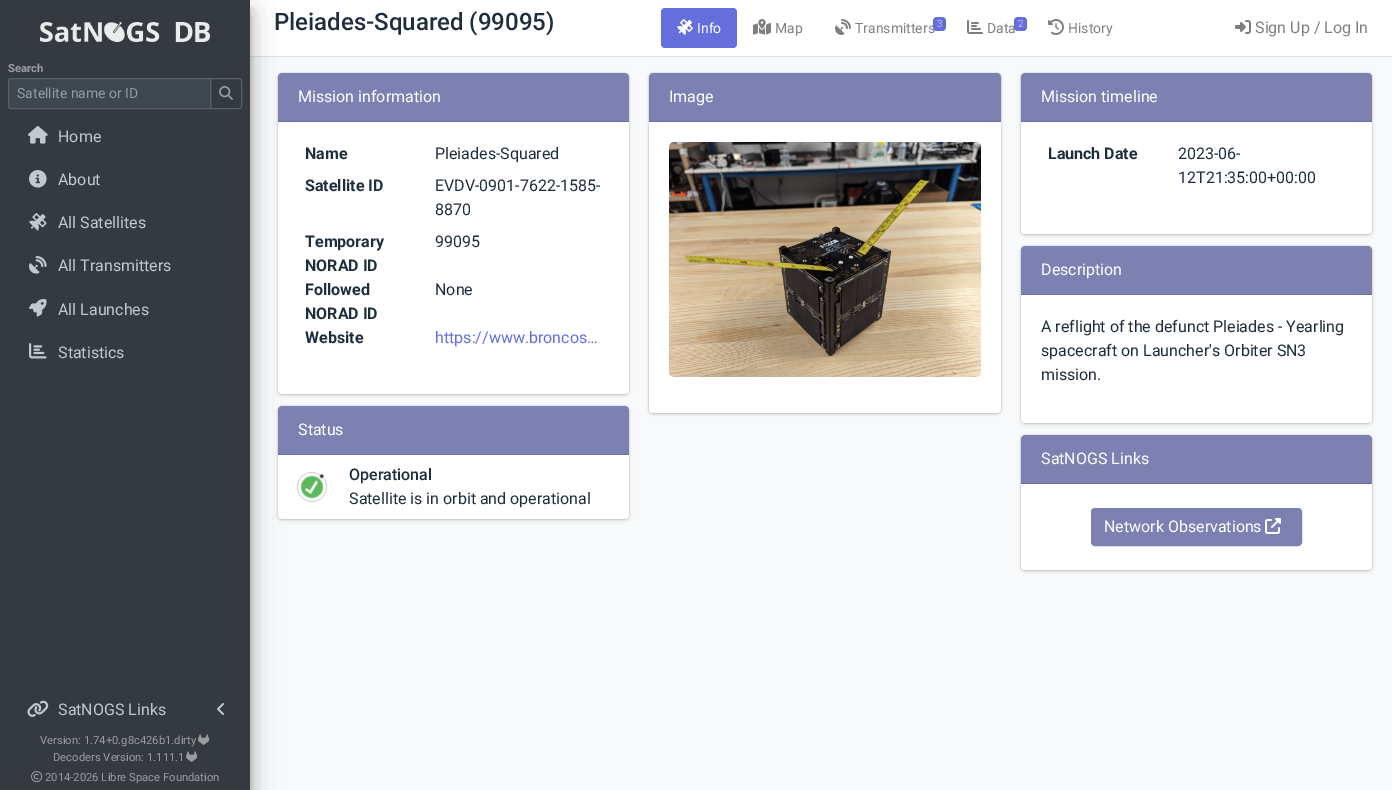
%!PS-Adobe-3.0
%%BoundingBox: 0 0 1392 790
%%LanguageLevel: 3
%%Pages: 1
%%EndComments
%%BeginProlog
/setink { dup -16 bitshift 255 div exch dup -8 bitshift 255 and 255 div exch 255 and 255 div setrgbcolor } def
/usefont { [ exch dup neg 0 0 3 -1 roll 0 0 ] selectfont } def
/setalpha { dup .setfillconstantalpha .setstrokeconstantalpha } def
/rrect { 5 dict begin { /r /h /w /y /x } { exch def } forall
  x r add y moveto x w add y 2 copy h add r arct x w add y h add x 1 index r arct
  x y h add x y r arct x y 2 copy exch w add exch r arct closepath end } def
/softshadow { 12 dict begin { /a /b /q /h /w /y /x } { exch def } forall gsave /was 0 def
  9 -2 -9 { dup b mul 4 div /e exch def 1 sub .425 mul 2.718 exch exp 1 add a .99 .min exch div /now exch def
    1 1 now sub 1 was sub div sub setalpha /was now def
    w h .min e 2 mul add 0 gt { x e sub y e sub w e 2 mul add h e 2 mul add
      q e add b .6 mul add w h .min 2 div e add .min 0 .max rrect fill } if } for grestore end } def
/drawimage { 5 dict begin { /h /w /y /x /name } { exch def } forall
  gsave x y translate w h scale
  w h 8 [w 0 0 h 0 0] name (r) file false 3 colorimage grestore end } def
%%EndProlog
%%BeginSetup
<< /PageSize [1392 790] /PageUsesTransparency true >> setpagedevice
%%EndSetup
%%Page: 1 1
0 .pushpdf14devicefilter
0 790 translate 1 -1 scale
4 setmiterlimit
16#FFFFFF setink
0 0 1392 790 rectfill
16#F8F9FA setink
250 57 1142 733 rectfill
16#DEE2E6 setink
250 56 1142 1 rectfill
/Roboto-Medium 24 usefont
16#1F2D3D setink
274 30 moveto (Pleiades-Squared \(99095\)) show
16#656FDB setink
661 8 76 40 4 rrect fill
(img1.raw) 677 19 16 16 drawimage
/Roboto-Regular 14 usefont
16#FFFFFF setink
697 33 moveto (Info) show
(img2.raw) 753 19 18 16 drawimage
16#808080 setink
775 33 moveto (Map) show
(img3.raw) 835 19 16 16 drawimage
855 33 moveto (Transmitters) show
16#656FDB setink
933 17 13 14 4 rrect fill
/Roboto-Light 10 usefont
16#E0E2F8 setink
937 27 moveto (3) show
(img4.raw) 967 20 16 14 drawimage
/Roboto-Regular 14 usefont
16#808080 setink
987 33 moveto (Data) show
16#656FDB setink
1014 17 13 14 4 rrect fill
/Roboto-Light 10 usefont
16#E0E2F8 setink
1018 27 moveto (2) show
(img5.raw) 1048 19 16 16 drawimage
/Roboto-Regular 14 usefont
16#808080 setink
1068 33 moveto (History) show
(img6.raw) 1235 20 16 14 drawimage
/Roboto-Regular 16 usefont
1255 33 moveto (Sign Up / Log In) show
16#000000 setink
0 10 250 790 0 5 0.22 softshadow
278 74 351 321 4 1.5 0.2 softshadow
278 73 351 321 4 0.5 0.12 softshadow
16#FFFFFF setink
278 73 351 321 4 rrect fill
16#7C81B2 setink
282 73 moveto 625 73 lineto 627 73 629 75 629 77 curveto 629 122 lineto 278 122 lineto 278 77 lineto 278 75 280 73 282 73 curveto closepath fill
16#6D719C setink
278 121 351 1 rectfill
16#000000 setink
278 407 351 113 4 1.5 0.2 softshadow
278 406 351 113 4 0.5 0.12 softshadow
16#FFFFFF setink
278 406 351 113 4 rrect fill
16#7C81B2 setink
282 406 moveto 625 406 lineto 627 406 629 408 629 410 curveto 629 455 lineto 278 455 lineto 278 410 lineto 278 408 280 406 282 406 curveto closepath fill
16#6D719C setink
278 454 351 1 rectfill
16#000000 setink
0 14 250 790 0 14 0.25 softshadow
16#343A40 setink
0 0 250 790 rectfill
(img7.raw) 40 22 170 20 drawimage
/Roboto-Bold 11.25 usefont
16#9A9DA0 setink
8 72 moveto (Search) show
16#3F474E setink
11 78.5 moveto 210.5 78.5 lineto 210.5 108.5 lineto 11 108.5 lineto 9.5 108.5 8.5 107.5 8.5 106 curveto 8.5 81 lineto 8.5 79.5 9.5 78.5 11 78.5 curveto closepath gsave fill grestore
16#56606A setink
stroke
/Roboto-Regular 14 usefont
16#939BA2 setink
17 98 moveto (Satellite name or ID) show
16#56606A setink
210.5 78.5 moveto 239 78.5 lineto 240.5 78.5 241.5 79.5 241.5 81 curveto 241.5 106 lineto 241.5 107.5 240.5 108.5 239 108.5 curveto 210.5 108.5 lineto closepath stroke
(img8.raw) 219 86 14 14 drawimage
(img9.raw) 27 126 21 18 drawimage
/Roboto-Regular 16 usefont
16#C2C7D0 setink
58 142 moveto (Home) show
(img10.raw) 29 170 18 18 drawimage
58 185 moveto (About) show
(img11.raw) 29 213 18 18 drawimage
58 228 moveto (All Satellites) show
(img12.raw) 29 256 18 18 drawimage
58 271 moveto (All Transmitters) show
(img13.raw) 29 299 18 18 drawimage
58 315 moveto (All Launches) show
(img14.raw) 29 343 18 16 drawimage
58 358 moveto (Statistics) show
(img15.raw) 27 700 22 17 drawimage
58 715 moveto (SatNOGS Links) show
(img16.raw) 217 703 7 12 drawimage
/Roboto-Regular 11.25 usefont
16#9A9DA0 setink
40 744 moveto (Version: 1.74+0.g8c426b1.dirty) show
(img17.raw) 198 734 12 11 drawimage
53 761 moveto (Decoders Version: 1.111.1) show
(img17.raw) 186 751 12 11 drawimage
(img18.raw) 31 771 12 12 drawimage
45 781 moveto (2014-2026 Libre Space Foundation) show
/Roboto-Regular 16 usefont
16#FFFFFF setink
298 102 moveto (Mission information) show
/Roboto-Bold 16 usefont
16#1F2D3D setink
305 159 moveto (Name) show
/Roboto-Regular 16 usefont
435 159 moveto (Pleiades-Squared) show
/Roboto-Bold 16 usefont
305 191 moveto (Satellite ID) show
/Roboto-Regular 16 usefont
435 191 moveto (EVDV-0901-7622-1585-) show
435 215 moveto (8870) show
/Roboto-Bold 16 usefont
305 247 moveto (Temporary) show
305 271 moveto (NORAD ID) show
/Roboto-Regular 16 usefont
435 247 moveto (99095) show
/Roboto-Bold 16 usefont
305 295 moveto (Followed) show
305 319 moveto (NORAD ID) show
/Roboto-Regular 16 usefont
435 295 moveto (None) show
/Roboto-Bold 16 usefont
305 343 moveto (Website) show
/Roboto-Regular 16 usefont
16#656FDB setink
435 343 moveto (https://www.broncos…) show
16#000000 setink
649 74 352 340 4 1.5 0.2 softshadow
649 73 352 340 4 0.5 0.12 softshadow
16#FFFFFF setink
649 73 352 340 4 rrect fill
16#7C81B2 setink
653 73 moveto 997 73 lineto 999 73 1001 75 1001 77 curveto 1001 122 lineto 649 122 lineto 649 77 lineto 649 75 651 73 653 73 curveto closepath fill
16#6D719C setink
649 121 352 1 rectfill
16#FFFFFF setink
669 102 moveto (Image) show
(img19.raw) 669 142 312 235 drawimage
16#000000 setink
1021 74 351 161 4 1.5 0.2 softshadow
1021 73 351 161 4 0.5 0.12 softshadow
16#FFFFFF setink
1021 73 351 161 4 rrect fill
16#7C81B2 setink
1025 73 moveto 1368 73 lineto 1370 73 1372 75 1372 77 curveto 1372 122 lineto 1021 122 lineto 1021 77 lineto 1021 75 1023 73 1025 73 curveto closepath fill
16#6D719C setink
1021 121 351 1 rectfill
16#FFFFFF setink
1041 102 moveto (Mission timeline) show
/Roboto-Bold 16 usefont
16#1F2D3D setink
1048 159 moveto (Launch Date) show
/Roboto-Regular 16 usefont
1178 159 moveto (2023-06-) show
1178 183 moveto (12T21:35:00+00:00) show
16#000000 setink
1021 247 351 177 4 1.5 0.2 softshadow
1021 246 351 177 4 0.5 0.12 softshadow
16#FFFFFF setink
1021 246 351 177 4 rrect fill
16#7C81B2 setink
1025 246 moveto 1368 246 lineto 1370 246 1372 248 1372 250 curveto 1372 295 lineto 1021 295 lineto 1021 250 lineto 1021 248 1023 246 1025 246 curveto closepath fill
16#6D719C setink
1021 294 351 1 rectfill
16#FFFFFF setink
1041 275 moveto (Description) show
16#1F2D3D setink
[
    [(A reflight of the defunct Pleiades - Yearling) 1041 332]
    [(spacecraft on Launcher's Orbiter SN3) 1041 356]
    [(mission.) 1041 380]
] { aload pop moveto show } forall
16#FFFFFF setink
298 435 moveto (Status) show
(img20.raw) 297 472 30 30 drawimage
/Roboto-Medium 16 usefont
16#1F2D3D setink
349 480 moveto (Operational) show
/Roboto-Regular 16 usefont
349 504 moveto (Satellite is in orbit and operational) show
16#000000 setink
1021 436 351 135 4 1.5 0.2 softshadow
1021 435 351 135 4 0.5 0.12 softshadow
16#FFFFFF setink
1021 435 351 135 4 rrect fill
16#7C81B2 setink
1025 435 moveto 1368 435 lineto 1370 435 1372 437 1372 439 curveto 1372 484 lineto 1021 484 lineto 1021 439 lineto 1021 437 1023 435 1025 435 curveto closepath fill
16#6D719C setink
1021 483 351 1 rectfill
16#FFFFFF setink
1041 464 moveto (SatNOGS Links) show
16#7C81B2 setink
1091.5 508.5 210 37 3.5 rrect gsave fill grestore
stroke
16#FFFFFF setink
1104 532 moveto (Network Observations) show
(img21.raw) 1265 518 16 16 drawimage
.poppdf14devicefilter showpage
%%EOF
